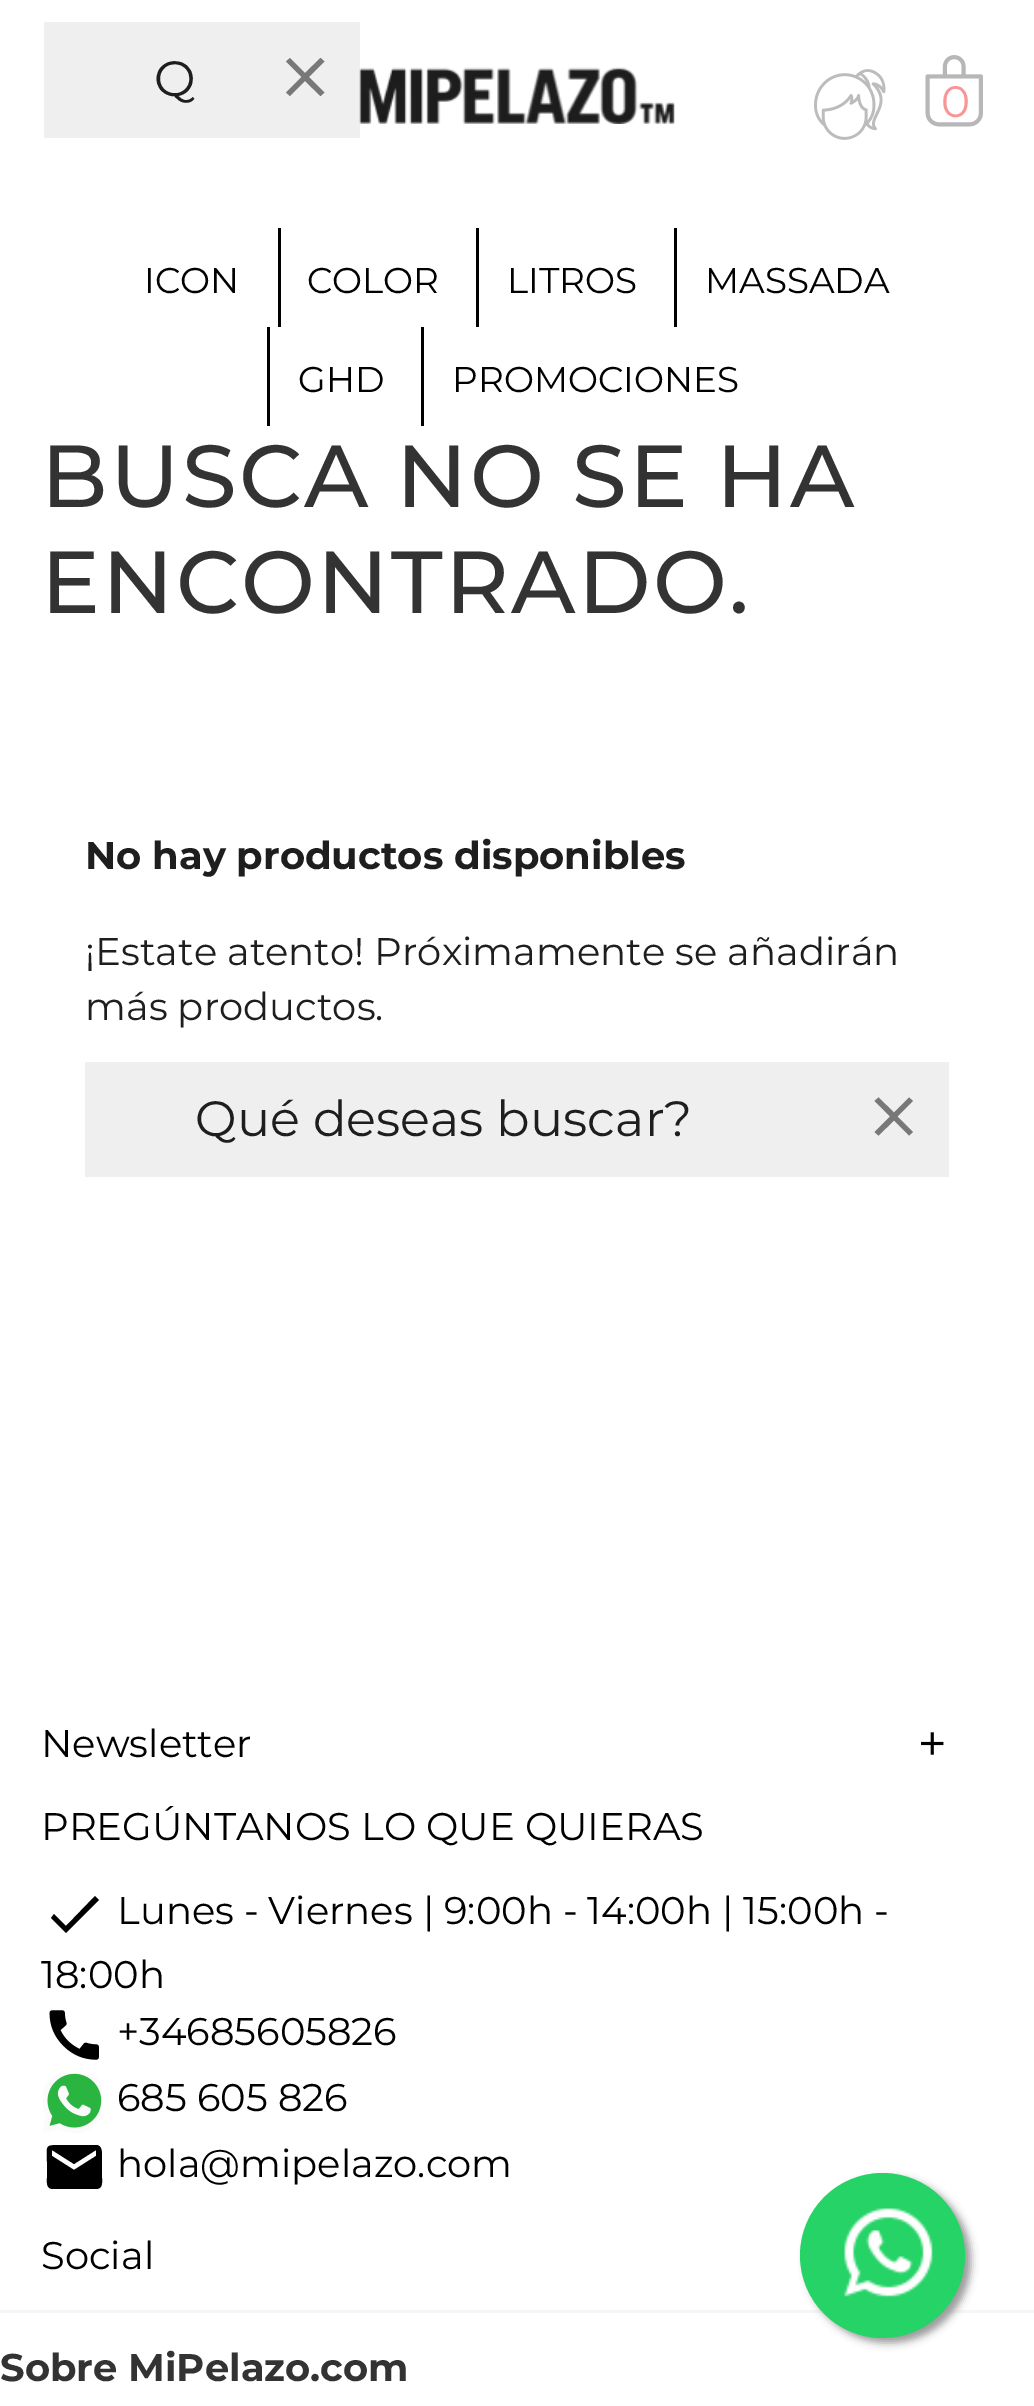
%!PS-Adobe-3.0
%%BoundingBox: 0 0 1034 2406
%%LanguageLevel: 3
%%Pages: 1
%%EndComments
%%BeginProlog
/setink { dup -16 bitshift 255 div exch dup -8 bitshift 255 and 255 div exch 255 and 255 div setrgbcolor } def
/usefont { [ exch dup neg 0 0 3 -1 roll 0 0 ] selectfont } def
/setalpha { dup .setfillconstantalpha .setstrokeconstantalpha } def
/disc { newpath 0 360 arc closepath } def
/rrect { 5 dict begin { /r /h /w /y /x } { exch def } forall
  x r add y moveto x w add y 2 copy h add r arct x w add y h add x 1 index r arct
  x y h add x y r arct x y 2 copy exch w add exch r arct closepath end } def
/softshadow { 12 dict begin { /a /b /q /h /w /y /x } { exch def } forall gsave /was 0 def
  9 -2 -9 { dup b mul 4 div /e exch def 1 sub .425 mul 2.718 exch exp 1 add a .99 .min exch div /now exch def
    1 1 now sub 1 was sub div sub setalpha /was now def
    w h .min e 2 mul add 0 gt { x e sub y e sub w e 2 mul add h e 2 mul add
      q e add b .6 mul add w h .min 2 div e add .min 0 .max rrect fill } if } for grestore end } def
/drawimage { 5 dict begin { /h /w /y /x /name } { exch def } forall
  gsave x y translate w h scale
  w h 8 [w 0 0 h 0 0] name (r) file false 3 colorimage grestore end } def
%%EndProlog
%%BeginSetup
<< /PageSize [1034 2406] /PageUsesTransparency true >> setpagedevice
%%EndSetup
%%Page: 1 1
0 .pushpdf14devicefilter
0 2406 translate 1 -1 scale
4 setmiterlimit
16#FFFFFF setink
0 0 1034 2406 rectfill
16#EFEFEF setink
44 22 316 116 rectfill
/Montserrat-Regular 49.5 usefont
16#1D1E1D setink
154 96 moveto (Q) show
16#787878 setink
324.5 61.5 moveto 309 77 lineto 324.5 92.5 lineto 320.5 96 lineto 305 81 lineto 290 96 lineto 286 92.5 lineto 301.5 77 lineto 286 61.5 lineto 290 58 lineto 305 73 lineto 320.5 58 lineto closepath fill
(img1.raw) 359 67 316 57 drawimage
(img2.raw) 814 69 72 71 drawimage
(img3.raw) 925 55 58 72 drawimage
/Montserrat-Regular 44 usefont
16#F99595 setink
941 117 moveto (0) show
/Montserrat-Regular 35.75 usefont
16#000000 setink
144 293 moveto (ICON) show
278 228 3 99 rectfill
307 293 moveto (COLOR) show
476 228 3 99 rectfill
507 293 moveto (LITROS) show
674 228 3 99 rectfill
705 293 moveto (MASSADA) show
267 327 3 99 rectfill
298 392 moveto (GHD) show
421 327 3 99 rectfill
452 392 moveto (PROMOCIONES) show
/Montserrat-Medium 88 usefont
16#333333 setink
41 507 moveto 2.25 0 (BUSCA NO SE HA) ashow
41 613 moveto 2.25 0 (ENCONTRADO.) ashow
/Montserrat-Bold 38.5 usefont
16#1D1E1D setink
85 869 moveto (No hay productos disponibles) show
/Montserrat-Regular 38.5 usefont
85 965 moveto (¡Estate atento! Próximamente se añadirán) show
85 1020 moveto (más productos.) show
16#EFEFEF setink
85 1062 864 115 rectfill
/Montserrat-Regular 49.5 usefont
16#1D1E1D setink
195 1136 moveto (Qué deseas buscar?) show
16#787878 setink
913 1101 moveto 897.5 1116.5 lineto 913 1132 lineto 909 1135.5 lineto 894 1120.5 lineto 878.5 1135.5 lineto 874.5 1132 lineto 890 1116.5 lineto 874.5 1101 lineto 878.5 1097.5 lineto 894 1112.5 lineto 909 1097.5 lineto closepath fill
/Montserrat-Regular 38.5 usefont
16#000000 setink
41 1757 moveto (Newsletter) show
(img4.raw) 921 1732 23 23 drawimage
41 1840 moveto (PREGÚNTANOS LO QUE QUIERAS) show
66 1926 moveto 95 1896 lineto 99 1900 lineto 66 1933 lineto 51 1918 lineto 54 1914 lineto closepath fill
117 1924 moveto (Lunes - Viernes | 9:00h - 14:00h | 15:00h -) show
41 1988 moveto (18:00h) show
(img5.raw) 49 2010 50 50 drawimage
117 2045 moveto (+34685605826) show
(img6.raw) 43 2073 59 60 drawimage
117 2111 moveto (685 605 826) show
96 2156 moveto 96 2150 lineto 74 2164 lineto 52 2150 lineto 52 2156 lineto 74 2170 lineto closepath 96 2145 moveto 102 2145 102 2152 102 2156 curveto 102 2178 lineto 102 2182 103 2188 97 2189 curveto 52 2189 lineto 46 2188 47 2182 47 2178 curveto 47 2162 lineto 47 2146 44 2145 60 2145 curveto closepath fill
117 2177 moveto (hola@mipelazo.com) show
41 2269 moveto (Social) show
16#F6F6F6 setink
0 2310 1034 3 rectfill
/Montserrat-Bold 38.5 usefont
16#333333 setink
0 2381 moveto (Sobre MiPelazo.com) show
16#999999 setink
806 2178 165 165 82.5 4 1 softshadow
16#25D366 setink
882.5 2255.5 82.5 disc fill
(img7.raw) 844 2208 89 89 drawimage
.poppdf14devicefilter showpage
%%EOF
